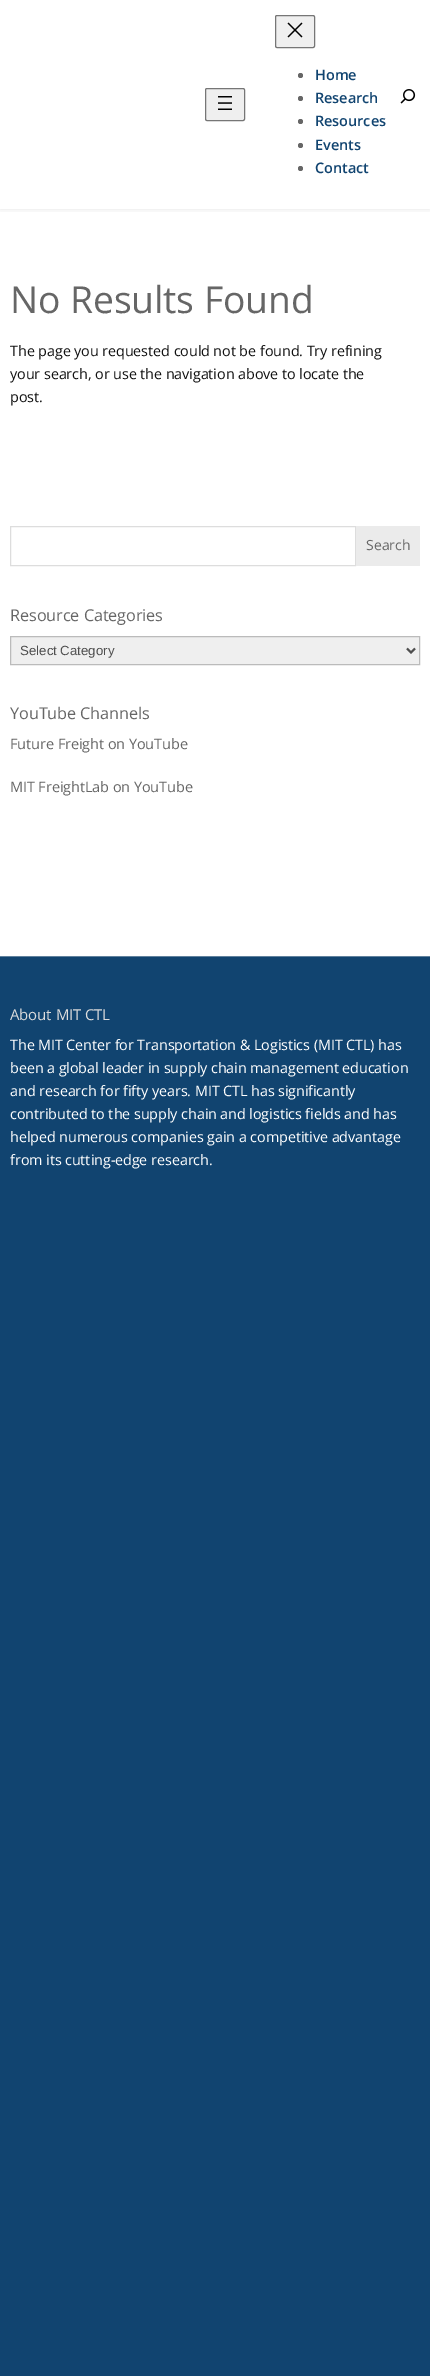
%!PS-Adobe-3.0
%%BoundingBox: 0 0 430 2376
%%LanguageLevel: 3
%%Pages: 1
%%EndComments
%%BeginProlog
/setink { dup -16 bitshift 255 div exch dup -8 bitshift 255 and 255 div exch 255 and 255 div setrgbcolor } def
/usefont { [ exch dup neg 0 0 3 -1 roll 0 0 ] selectfont } def
/setalpha { dup .setfillconstantalpha .setstrokeconstantalpha } def
/disc { newpath 0 360 arc closepath } def
/rrect { 5 dict begin { /r /h /w /y /x } { exch def } forall
  x r add y moveto x w add y 2 copy h add r arct x w add y h add x 1 index r arct
  x y h add x y r arct x y 2 copy exch w add exch r arct closepath end } def
/softshadow { 12 dict begin { /a /b /q /h /w /y /x } { exch def } forall gsave /was 0 def
  9 -2 -9 { dup b mul 4 div /e exch def 1 sub .425 mul 2.718 exch exp 1 add a .99 .min exch div /now exch def
    1 1 now sub 1 was sub div sub setalpha /was now def
    w h .min e 2 mul add 0 gt { x e sub y e sub w e 2 mul add h e 2 mul add
      q e add b .6 mul add w h .min 2 div e add .min 0 .max rrect fill } if } for grestore end } def
/drawimage { 5 dict begin { /h /w /y /x /name } { exch def } forall
  gsave x y translate w h scale
  w h 8 [w 0 0 h 0 0] name (r) file false 3 colorimage grestore end } def
%%EndProlog
%%BeginSetup
<< /PageSize [430 2376] /PageUsesTransparency true >> setpagedevice
%%EndSetup
%%Page: 1 1
0 .pushpdf14devicefilter
0 2376 translate 1 -1 scale
4 setmiterlimit
16#FFFFFF setink
0 0 430 2376 rectfill
gsave
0 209 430 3 rectclip
16#000000 setink
0 0 430 209 0 3.5 0.1 softshadow
grestore
16#EFEFEF setink
205.5 88.5 39 32 1.5 rrect gsave fill grestore
16#767676 setink
stroke
(img1.raw) 218 96 14 14 drawimage
16#EFEFEF setink
275.5 15.5 39 32 1.5 rrect gsave fill grestore
16#767676 setink
stroke
(img2.raw) 287 22 16 16 drawimage
16#666666 setink
300.5 75.5 2.5 disc fill
/OpenSans-SemiBold 14.5 usefont
16#114470 setink
315 80 moveto -0.1 0 (Home) ashow
16#666666 setink
300.5 98.5 2.5 disc fill
16#114470 setink
315 103 moveto -0.1 0 (Research) ashow
16#666666 setink
300.5 121.5 2.5 disc fill
16#114470 setink
315 126 moveto -0.1 0 (Resources) ashow
16#666666 setink
300.5 145.5 2.5 disc fill
16#114470 setink
315 150 moveto -0.1 0 (Events) ashow
16#666666 setink
300.5 168.5 2.5 disc fill
16#114470 setink
315 173 moveto -0.1 0 (Contact) ashow
(img3.raw) 400 89 16 15 drawimage
/OpenSans-Regular 37.25 usefont
16#666666 setink
10 313 moveto -0.1 0 (No Results Found) ashow
/OpenSans-Regular 14.4 usefont
16#111111 setink
10 356 moveto -0.1 0 (The page you requested could not be found. Try refining) ashow
10 379 moveto -0.1 0 (your search, or use the navigation above to locate the) ashow
10 402 moveto -0.1 0 (post.) ashow
16#DDDDDD setink
10.5 526.5 345 39 rectstroke
16#EBEBEB setink
356 526 64 40 rectfill
/OpenSans-Regular 14 usefont
16#666666 setink
366 550 moveto (Search) show
/OpenSans-Regular 16.25 usefont
10 621 moveto -0.1 0 (Resource Categories) ashow
16#EFEFEF setink
10.5 636.5 moveto 419.5 636.5 lineto 419.5 664.5 lineto 10.5 664.5 lineto closepath gsave fill grestore
16#BBBBBB setink
stroke
16#4E4E4E setink
2 setlinewidth
407 648.5 moveto 411 652.5 lineto 415 648.5 lineto stroke
/LiberationSans-Regular 13.25 usefont
20 655 moveto (Select Category) show
/OpenSans-Regular 16.25 usefont
16#666666 setink
10 719 moveto -0.1 0 (YouTube Channels) ashow
/OpenSans-Regular 14.5 usefont
10 749 moveto -0.1 0 (Future Freight on YouTube) ashow
10 792 moveto -0.1 0 (MIT FreightLab on YouTube) ashow
16#114470 setink
0 957 430 1419 rectfill
16#60819D setink
0 956 430 1 rectfill
/OpenSans-Regular 15 usefont
16#DCDCDC setink
10 1020 moveto -0.1 0 (About MIT CTL) ashow
/OpenSans-Regular 14.4 usefont
16#FFFFFF setink
10 1050 moveto -0.1 0 (The MIT Center for Transportation & Logistics \(MIT CTL\) has) ashow
10 1073 moveto -0.1 0 (been a global leader in supply chain management education) ashow
10 1096 moveto -0.1 0 (and research for fifty years. MIT CTL has significantly) ashow
10 1119 moveto -0.1 0 (contributed to the supply chain and logistics fields and has) ashow
10 1142 moveto -0.1 0 (helped numerous companies gain a competitive advantage) ashow
10 1165 moveto -0.1 0 (from its cutting-edge research.) ashow
.poppdf14devicefilter showpage
%%EOF
